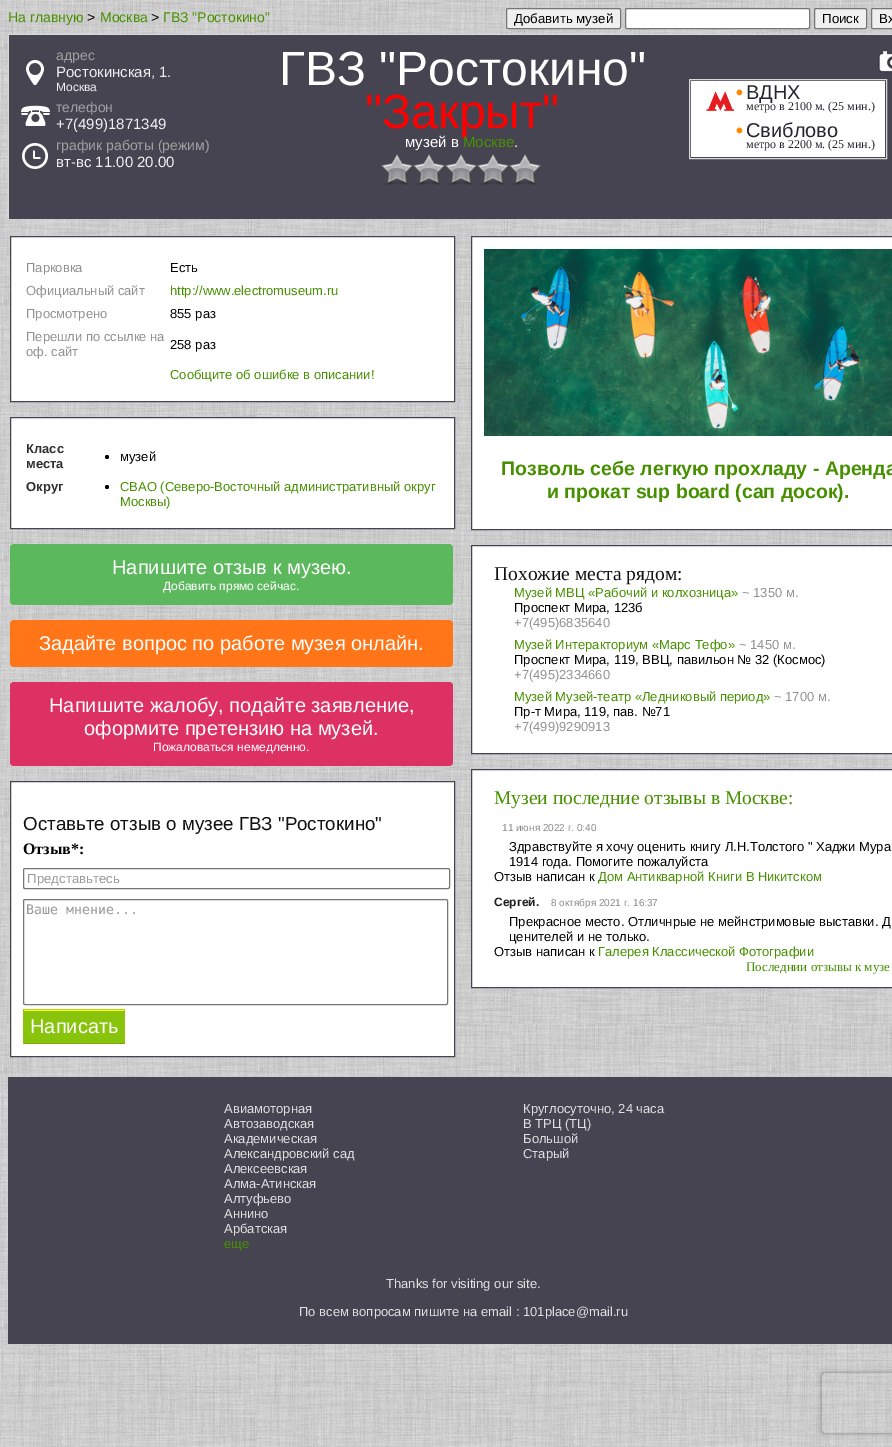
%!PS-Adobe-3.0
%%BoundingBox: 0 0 892 1447
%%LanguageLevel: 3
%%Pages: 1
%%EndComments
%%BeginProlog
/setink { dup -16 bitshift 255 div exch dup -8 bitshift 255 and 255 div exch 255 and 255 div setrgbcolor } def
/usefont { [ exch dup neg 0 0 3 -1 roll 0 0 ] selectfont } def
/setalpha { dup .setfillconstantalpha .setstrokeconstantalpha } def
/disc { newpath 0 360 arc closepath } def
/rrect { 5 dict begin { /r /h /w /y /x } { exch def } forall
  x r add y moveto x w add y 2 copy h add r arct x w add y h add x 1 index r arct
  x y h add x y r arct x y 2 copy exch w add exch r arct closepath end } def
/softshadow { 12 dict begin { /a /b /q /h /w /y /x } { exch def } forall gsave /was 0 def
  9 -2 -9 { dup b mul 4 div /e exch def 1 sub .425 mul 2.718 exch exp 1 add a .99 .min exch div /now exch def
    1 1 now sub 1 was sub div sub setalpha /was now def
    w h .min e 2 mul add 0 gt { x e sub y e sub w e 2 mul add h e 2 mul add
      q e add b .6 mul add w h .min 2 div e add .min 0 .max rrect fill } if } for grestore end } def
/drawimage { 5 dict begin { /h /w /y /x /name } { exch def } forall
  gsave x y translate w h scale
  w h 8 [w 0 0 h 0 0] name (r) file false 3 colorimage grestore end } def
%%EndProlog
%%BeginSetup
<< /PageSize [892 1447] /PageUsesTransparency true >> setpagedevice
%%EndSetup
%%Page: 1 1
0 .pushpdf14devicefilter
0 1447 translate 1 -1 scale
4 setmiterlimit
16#FFFFFF setink
0 0 892 1447 rectfill
(img1.raw) 0 0 892 1447 drawimage
/LiberationSans-Regular 14 usefont
16#469000 setink
8 22 moveto (На главную) show
16#000000 setink
87 22 moveto (>) show
16#469000 setink
100 22 moveto (Москва) show
16#000000 setink
151 22 moveto (>) show
16#469000 setink
163 22 moveto (ГВЗ "Ростокино") show
16#EFEFEF setink
506.5 8.5 114 20 1.5 rrect gsave fill grestore
16#767676 setink
stroke
/LiberationSans-Regular 13.25 usefont
16#000000 setink
514 23 moveto (Добавить музей) show
16#FFFFFF setink
625.5 8.5 184 20 1.5 rrect gsave fill grestore
16#767676 setink
stroke
16#EFEFEF setink
814.5 8.5 52 20 1.5 rrect gsave fill grestore
16#767676 setink
stroke
16#000000 setink
822 23 moveto (Поиск) show
16#EFEFEF setink
871.5 8.5 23 20 1.5 rrect gsave fill grestore
16#767676 setink
stroke
16#000000 setink
879 23 moveto (Вх) show
[
    [9 35 883 184 16#464451]
    [8 34 884 1 16#D9D9D9]
    [8 34 1 185 16#D9D9D9]
] { aload pop setink rectfill } forall
/LiberationSans-Regular 14 usefont
16#A0A0A0 setink
56 60 moveto (адрес) show
(img2.raw) 26 60 18 25 drawimage
/LiberationSans-Regular 15 usefont
16#F0F0F0 setink
56 77 moveto (Ростокинская, 1.) show
/LiberationSans-Regular 12 usefont
56 91 moveto (Москва) show
(img3.raw) 21 105 29 21 drawimage
/LiberationSans-Regular 14 usefont
16#A0A0A0 setink
56 112 moveto (телефон) show
/LiberationSans-Regular 15 usefont
16#F0F0F0 setink
56 129 moveto (+7\(499\)1871349) show
(img4.raw) 22 143 26 26 drawimage
/LiberationSans-Regular 14 usefont
16#A0A0A0 setink
56 150 moveto (график работы \(режим\)) show
/LiberationSans-Regular 15 usefont
16#F0F0F0 setink
56 167 moveto (вт-вс 11.00 20.00) show
/LiberationSans-Regular 48 usefont
16#FFFFFF setink
279 85 moveto (ГВЗ "Ростокино") show
16#FF0000 setink
365 128 moveto ("Закрыт") show
/LiberationSans-Regular 15 usefont
16#FFFFFF setink
405 147 moveto (музей в) show
16#469000 setink
463 147 moveto (Москве) show
16#FFFFFF setink
514 147 moveto (.) show
(img5.raw) 381 154 160 31 drawimage
691 81 194 76 rectfill
16#D9D9D9 setink
689.5 79.5 197 79 rectstroke
(img6.raw) 706 91 29 20 drawimage
/LiberationSans-Bold 20 usefont
16#FF8800 setink
736 99 moveto (•) show
/LiberationSans-Regular 20 usefont
16#262431 setink
746 99 moveto (ВДНХ) show
/LiberationSerif-Regular 12 usefont
746 110 moveto (метро в 2100 м. \(25 мин.\)) show
/LiberationSans-Bold 20 usefont
16#FF8800 setink
736 137 moveto (•) show
/LiberationSans-Regular 20 usefont
16#262431 setink
746 137 moveto (Свиблово) show
/LiberationSerif-Regular 12 usefont
746 148 moveto (метро в 2200 м. \(25 мин.\)) show
(img7.raw) 873 47 19 29 drawimage
16#FFFFFF setink
10.5 236.5 moveto 454.5 236.5 lineto 454.5 401.5 lineto 10.5 401.5 lineto closepath gsave fill grestore
16#464451 setink
stroke
/LiberationSans-Regular 13 usefont
16#909090 setink
26 272 moveto (Парковка) show
16#000000 setink
170 272 moveto (Есть) show
16#909090 setink
26 295 moveto (Официальный сайт) show
16#469000 setink
170 295 moveto (http://www.electromuseum.ru) show
16#909090 setink
26 318 moveto (Просмотрено) show
16#000000 setink
170 318 moveto (855 раз) show
16#909090 setink
26 341 moveto (Перешли по ссылке на) show
26 356 moveto (оф. сайт) show
16#000000 setink
170 349 moveto (258 раз) show
16#469000 setink
170 379 moveto (Сообщите об ошибке в описании!) show
16#FFFFFF setink
10.5 417.5 moveto 454.5 417.5 lineto 454.5 528.5 lineto 10.5 528.5 lineto closepath gsave fill grestore
16#464451 setink
stroke
/LiberationSans-Bold 13 usefont
16#303030 setink
26 453 moveto (Класс) show
26 468 moveto (места) show
16#000000 setink
107 457 2 disc fill
/LiberationSans-Regular 13 usefont
120 461 moveto (музей) show
/LiberationSans-Bold 13 usefont
16#303030 setink
26 491 moveto (Округ) show
16#000000 setink
107 487 2 disc fill
/LiberationSans-Regular 13 usefont
16#469000 setink
120 491 moveto (СВАО \(Северо-Восточный административный округ) show
120 506 moveto (Москвы\)) show
16#5CB85C setink
10 544 443 61 4 rrect fill
/LiberationSans-Regular 20 usefont
16#FFFFFF setink
112 574 moveto (Напишите отзыв к музею.) show
/LiberationSans-Regular 12 usefont
163 590 moveto (Добавить прямо сейчас.) show
16#FF7518 setink
10 620 443 47 4 rrect fill
/LiberationSans-Regular 20 usefont
16#FFFFFF setink
39 650 moveto (Задайте вопрос по работе музея онлайн.) show
16#DE3163 setink
10 682 443 84 4 rrect fill
16#FFFFFF setink
49 712 moveto (Напишите жалобу, подайте заявление,) show
84 735 moveto (оформите претензию на музей.) show
/LiberationSans-Regular 12 usefont
153 751 moveto (Пожаловаться немедленно.) show
10.5 781.5 moveto 454.5 781.5 lineto 454.5 1056.5 lineto 10.5 1056.5 lineto closepath gsave fill grestore
16#464451 setink
stroke
/LiberationSans-Regular 18.75 usefont
16#111111 setink
23 830 moveto (Оставьте отзыв о музее ГВЗ "Ростокино") show
/LiberationSerif-Bold 16 usefont
16#000000 setink
23 854 moveto (Отзыв*:) show
16#767676 setink
23.5 868.5 426 20 1.5 rrect stroke
/LiberationSans-Regular 13.25 usefont
16#999999 setink
27 883 moveto (Представьтесь) show
16#767676 setink
23.5 899.5 424 105 1.5 rrect stroke
/DejaVuSansMono-Regular 13.25 usefont
16#999999 setink
26 914 moveto (Ваше мнение...) show
16#89C40C setink
23 1009 102 35 0.5 rrect fill
[
    [24 1010 100 1 16#FFFF1C]
    [24 1009 101 1 16#B3D50C]
    [124 1010 1 34 16#97C108]
    [24 1043 101 1 16#7AAD03]
    [23 1010 1 34 16#97C108]
] { aload pop setink rectfill } forall
/LiberationSans-Regular 20 usefont
16#FFFFFF setink
30 1033 moveto (Написать) show
471.5 236.5 moveto 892.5 236.5 lineto 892.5 529.5 lineto 471.5 529.5 lineto closepath gsave fill grestore
16#464451 setink
stroke
(img8.raw) 484 249 408 187 drawimage
/LiberationSans-Bold 19.5 usefont
16#469000 setink
501 475 moveto (Позволь себе легкую прохладу - Аренда) show
547 498 moveto (и прокат sup board \(сап досок\).) show
16#FFFFFF setink
471.5 545.5 moveto 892.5 545.5 lineto 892.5 753.5 lineto 471.5 753.5 lineto closepath gsave fill grestore
16#464451 setink
stroke
/LiberationSerif-Regular 19.5 usefont
16#111111 setink
494 580 moveto (Похожие места рядом:) show
/LiberationSans-Regular 13 usefont
16#469000 setink
514 597 moveto (Музей МВЦ «Рабочий и колхозница») show
16#909090 setink
742 597 moveto (~ 1350 м.) show
16#000000 setink
514 612 moveto (Проспект Мира, 123б) show
16#909090 setink
514 627 moveto (+7\(495\)6835640) show
16#469000 setink
514 649 moveto (Музей Интеракториум «Марс Тефо») show
16#909090 setink
739 649 moveto (~ 1450 м.) show
16#000000 setink
514 664 moveto (Проспект Мира, 119, ВВЦ, павильон № 32 \(Космос\)) show
16#909090 setink
514 679 moveto (+7\(495\)2334660) show
16#469000 setink
514 701 moveto (Музей Музей-театр «Ледниковый период») show
16#909090 setink
774 701 moveto (~ 1700 м.) show
16#000000 setink
514 716 moveto (Пр-т Мира, 119, пав. №71) show
16#909090 setink
514 731 moveto (+7\(499\)9290913) show
16#FFFFFF setink
471.5 769.5 moveto 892.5 769.5 lineto 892.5 987.5 lineto 471.5 987.5 lineto closepath gsave fill grestore
16#464451 setink
stroke
/LiberationSerif-Regular 19.5 usefont
16#469000 setink
494 804 moveto (Музеи последние отзывы в Москве:) show
/LiberationSans-Regular 10 usefont
16#888888 setink
502 831 moveto (11 июня 2022 г. 0:40) show
/LiberationSans-Regular 13 usefont
16#000000 setink
[
    [(Здравствуйте я хочу оценить книгу Л.Н.Толстого " Хаджи Мура) 509 851]
    [(1914 года. Помогите пожалуйста) 509 866]
    [(Отзыв написан к) 494 881]
] { aload pop moveto show } forall
16#469000 setink
598 881 moveto (Дом Антикварной Книги В Никитском) show
/LiberationSans-Bold 12 usefont
16#212121 setink
494 906 moveto (Сергей.) show
/LiberationSans-Regular 10 usefont
16#888888 setink
551 906 moveto (8 октября 2021 г. 16:37) show
/LiberationSans-Regular 13 usefont
16#000000 setink
[
    [(Прекрасное место. Отличнрые не мейнстримовые выставки. Д) 509 926]
    [(ценителей и не только.) 509 941]
    [(Отзыв написан к) 494 956]
] { aload pop moveto show } forall
16#469000 setink
598 956 moveto (Галерея Классической Фотографии) show
/LiberationSerif-Regular 13 usefont
746 971 moveto (Последнии отзывы к музе) show
16#464451 setink
8 1077 884 267 rectfill
/LiberationSans-Regular 13 usefont
16#E0E0E0 setink
[
    [(Авиамоторная) 224 1113]
    [(Автозаводская) 224 1128]
    [(Академическая) 224 1143]
    [(Александровский сад) 224 1158]
    [(Алексеевская) 224 1173]
    [(Алма-Атинская) 224 1188]
    [(Алтуфьево) 224 1203]
    [(Аннино) 224 1218]
    [(Арбатская) 224 1233]
] { aload pop moveto show } forall
16#469000 setink
224 1248 moveto (еще) show
16#E0E0E0 setink
[
    [(Круглосуточно, 24 часа) 523 1113]
    [(В ТРЦ \(ТЦ\)) 523 1128]
    [(Большой) 523 1143]
    [(Старый) 523 1158]
    [(Thanks for visiting our site.) 386 1288]
    [(По всем вопросам пишите на email : 101place@mail.ru) 299 1316]
] { aload pop moveto show } forall
gsave
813 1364 moveto 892 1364 lineto 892 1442 lineto 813 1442 lineto closepath 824 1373 moveto 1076 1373 lineto 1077 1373 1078 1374 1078 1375 curveto 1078 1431 lineto 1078 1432 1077 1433 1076 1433 curveto 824 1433 lineto 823 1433 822 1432 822 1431 curveto 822 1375 lineto 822 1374 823 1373 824 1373 curveto closepath eoclip newpath
16#808080 setink
822 1373 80 60 2 2.5 1 softshadow
grestore
.poppdf14devicefilter showpage
%%EOF
